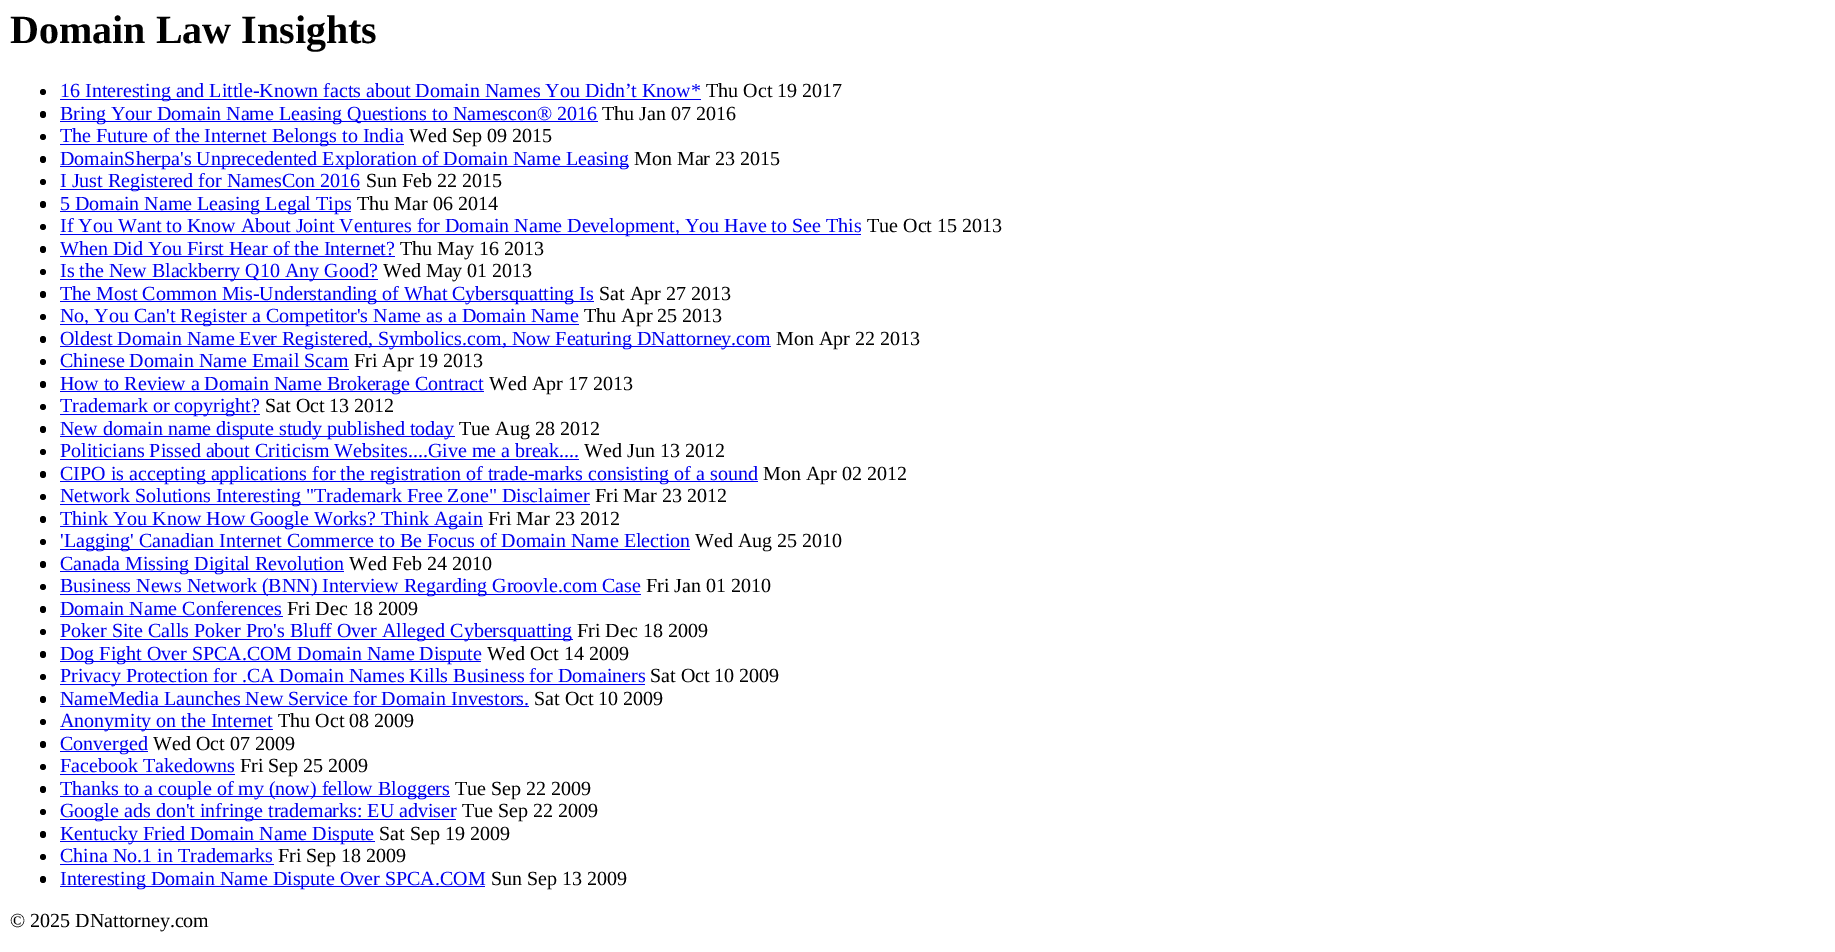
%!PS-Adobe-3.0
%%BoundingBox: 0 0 1835 952
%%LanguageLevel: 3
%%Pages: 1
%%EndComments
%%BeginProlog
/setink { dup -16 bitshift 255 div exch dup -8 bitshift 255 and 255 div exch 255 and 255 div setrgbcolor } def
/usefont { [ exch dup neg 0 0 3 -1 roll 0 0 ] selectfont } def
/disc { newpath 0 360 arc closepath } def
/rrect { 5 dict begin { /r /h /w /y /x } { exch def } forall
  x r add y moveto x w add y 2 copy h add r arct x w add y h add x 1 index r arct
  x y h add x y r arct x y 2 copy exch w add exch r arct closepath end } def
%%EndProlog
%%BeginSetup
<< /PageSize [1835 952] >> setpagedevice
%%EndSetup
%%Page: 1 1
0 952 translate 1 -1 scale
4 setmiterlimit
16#FFFFFF setink
0 0 1835 952 rectfill
/LiberationSerif-Bold 40 usefont
16#000000 setink
10 43 moveto (Domain Law Insights) show
43 92 3 disc fill
16#0000EE setink
60 99 641 1 rectfill
/LiberationSerif-Regular 20 usefont
60 97 moveto (16 Interesting and Little-Known facts about Domain Names You Didn’t Know*) show
16#000000 setink
706 97 moveto (Thu Oct 19 2017) show
40 111 6 7 3 rrect fill
16#0000EE setink
60 121 538 1 rectfill
60 120 moveto (Bring Your Domain Name Leasing Questions to Namescon® 2016) show
16#000000 setink
602 120 moveto (Thu Jan 07 2016) show
43 137 3 disc fill
16#0000EE setink
60 144 344 1 rectfill
60 142 moveto (The Future of the Internet Belongs to India) show
16#000000 setink
409 142 moveto (Wed Sep 09 2015) show
40 156 6 7 3 rrect fill
16#0000EE setink
60 166 569 1 rectfill
60 165 moveto (DomainSherpa's Unprecedented Exploration of Domain Name Leasing) show
16#000000 setink
634 165 moveto (Mon Mar 23 2015) show
43 182 3 disc fill
16#0000EE setink
60 189 300 1 rectfill
60 187 moveto (I Just Registered for NamesCon 2016) show
16#000000 setink
366 187 moveto (Sun Feb 22 2015) show
40 201 6 7 3 rrect fill
16#0000EE setink
60 211 291 1 rectfill
60 210 moveto (5 Domain Name Leasing Legal Tips) show
16#000000 setink
357 210 moveto (Thu Mar 06 2014) show
43 227 3 disc fill
16#0000EE setink
60 234 801 1 rectfill
60 232 moveto (If You Want to Know About Joint Ventures for Domain Name Development, You Have to See This) show
16#000000 setink
867 232 moveto (Tue Oct 15 2013) show
40 246 6 7 3 rrect fill
16#0000EE setink
60 255 moveto (When Did You First Hear of the Internet?) show
60 256 335 1 rectfill
16#000000 setink
400 255 moveto (Thu May 16 2013) show
43 272 3 disc fill
16#0000EE setink
60 279 318 1 rectfill
60 277 moveto (Is the New Blackberry Q10 Any Good?) show
16#000000 setink
383 277 moveto (Wed May 01 2013) show
40 291 6 7 3 rrect fill
16#0000EE setink
60 301 534 1 rectfill
60 300 moveto (The Most Common Mis-Understanding of What Cybersquatting Is) show
16#000000 setink
599 300 moveto (Sat Apr 27 2013) show
43 317 3 disc fill
16#0000EE setink
60 324 519 1 rectfill
60 322 moveto (No, You Can't Register a Competitor's Name as a Domain Name) show
16#000000 setink
584 322 moveto (Thu Apr 25 2013) show
40 336 6 7 3 rrect fill
16#0000EE setink
60 346 711 1 rectfill
60 345 moveto (Oldest Domain Name Ever Registered, Symbolics.com, Now Featuring DNattorney.com) show
16#000000 setink
776 345 moveto (Mon Apr 22 2013) show
43 362 3 disc fill
16#0000EE setink
60 367 moveto (Chinese Domain Name Email Scam) show
60 369 289 1 rectfill
16#000000 setink
354 367 moveto (Fri Apr 19 2013) show
40 381 6 7 3 rrect fill
16#0000EE setink
60 391 424 1 rectfill
60 390 moveto (How to Review a Domain Name Brokerage Contract) show
16#000000 setink
489 390 moveto (Wed Apr 17 2013) show
43 407 3 disc fill
16#0000EE setink
60 414 200 1 rectfill
60 412 moveto (Trademark or copyright?) show
16#000000 setink
265 412 moveto (Sat Oct 13 2012) show
40 426 6 7 3 rrect fill
16#0000EE setink
60 436 395 1 rectfill
60 435 moveto (New domain name dispute study published today) show
16#000000 setink
459 435 moveto (Tue Aug 28 2012) show
43 452 3 disc fill
16#0000EE setink
60 457 moveto (Politicians Pissed about Criticism Websites....Give me a break....) show
60 459 519 1 rectfill
16#000000 setink
584 457 moveto (Wed Jun 13 2012) show
40 471 6 7 3 rrect fill
16#0000EE setink
60 481 698 1 rectfill
60 480 moveto (CIPO is accepting applications for the registration of trade-marks consisting of a sound) show
16#000000 setink
763 480 moveto (Mon Apr 02 2012) show
43 497 3 disc fill
16#0000EE setink
60 504 530 1 rectfill
60 502 moveto (Network Solutions Interesting "Trademark Free Zone" Disclaimer) show
16#000000 setink
595 502 moveto (Fri Mar 23 2012) show
40 516 6 7 3 rrect fill
16#0000EE setink
60 526 423 1 rectfill
60 525 moveto (Think You Know How Google Works? Think Again) show
16#000000 setink
488 525 moveto (Fri Mar 23 2012) show
43 542 3 disc fill
16#0000EE setink
60 549 630 1 rectfill
60 547 moveto ('Lagging' Canadian Internet Commerce to Be Focus of Domain Name Election) show
16#000000 setink
695 547 moveto (Wed Aug 25 2010) show
40 561 6 7 3 rrect fill
16#0000EE setink
60 571 284 1 rectfill
60 570 moveto (Canada Missing Digital Revolution) show
16#000000 setink
349 570 moveto (Wed Feb 24 2010) show
43 587 3 disc fill
16#0000EE setink
60 594 581 1 rectfill
60 592 moveto (Business News Network \(BNN\) Interview Regarding Groovle.com Case) show
16#000000 setink
646 592 moveto (Fri Jan 01 2010) show
40 606 6 7 3 rrect fill
16#0000EE setink
60 615 moveto (Domain Name Conferences) show
60 616 223 1 rectfill
16#000000 setink
287 615 moveto (Fri Dec 18 2009) show
43 632 3 disc fill
16#0000EE setink
60 639 513 1 rectfill
60 637 moveto (Poker Site Calls Poker Pro's Bluff Over Alleged Cybersquatting) show
16#000000 setink
577 637 moveto (Fri Dec 18 2009) show
40 651 6 7 3 rrect fill
16#0000EE setink
60 661 421 1 rectfill
60 660 moveto (Dog Fight Over SPCA.COM Domain Name Dispute) show
16#000000 setink
487 660 moveto (Wed Oct 14 2009) show
43 677 3 disc fill
16#0000EE setink
60 684 585 1 rectfill
60 682 moveto (Privacy Protection for .CA Domain Names Kills Business for Domainers) show
16#000000 setink
650 682 moveto (Sat Oct 10 2009) show
40 696 6 7 3 rrect fill
16#0000EE setink
60 705 moveto (NameMedia Launches New Service for Domain Investors.) show
60 706 469 1 rectfill
16#000000 setink
534 705 moveto (Sat Oct 10 2009) show
43 722 3 disc fill
16#0000EE setink
60 729 213 1 rectfill
60 727 moveto (Anonymity on the Internet) show
16#000000 setink
278 727 moveto (Thu Oct 08 2009) show
40 741 6 7 3 rrect fill
16#0000EE setink
60 751 88 1 rectfill
60 750 moveto (Converged) show
16#000000 setink
153 750 moveto (Wed Oct 07 2009) show
43 767 3 disc fill
16#0000EE setink
60 772 moveto (Facebook Takedowns) show
60 774 175 1 rectfill
16#000000 setink
240 772 moveto (Fri Sep 25 2009) show
40 786 6 7 3 rrect fill
16#0000EE setink
60 796 390 1 rectfill
60 795 moveto (Thanks to a couple of my \(now\) fellow Bloggers) show
16#000000 setink
455 795 moveto (Tue Sep 22 2009) show
43 812 3 disc fill
16#0000EE setink
60 819 396 1 rectfill
60 817 moveto (Google ads don't infringe trademarks: EU adviser) show
16#000000 setink
462 817 moveto (Tue Sep 22 2009) show
40 831 6 7 3 rrect fill
16#0000EE setink
60 841 315 1 rectfill
60 840 moveto (Kentucky Fried Domain Name Dispute) show
16#000000 setink
379 840 moveto (Sat Sep 19 2009) show
43 857 3 disc fill
16#0000EE setink
60 862 moveto (China No.1 in Trademarks) show
60 864 214 1 rectfill
16#000000 setink
278 862 moveto (Fri Sep 18 2009) show
40 876 6 7 3 rrect fill
16#0000EE setink
60 886 425 1 rectfill
60 885 moveto (Interesting Domain Name Dispute Over SPCA.COM) show
16#000000 setink
491 885 moveto (Sun Sep 13 2009) show
10 927 moveto (© 2025 DNattorney.com) show
showpage
%%EOF
